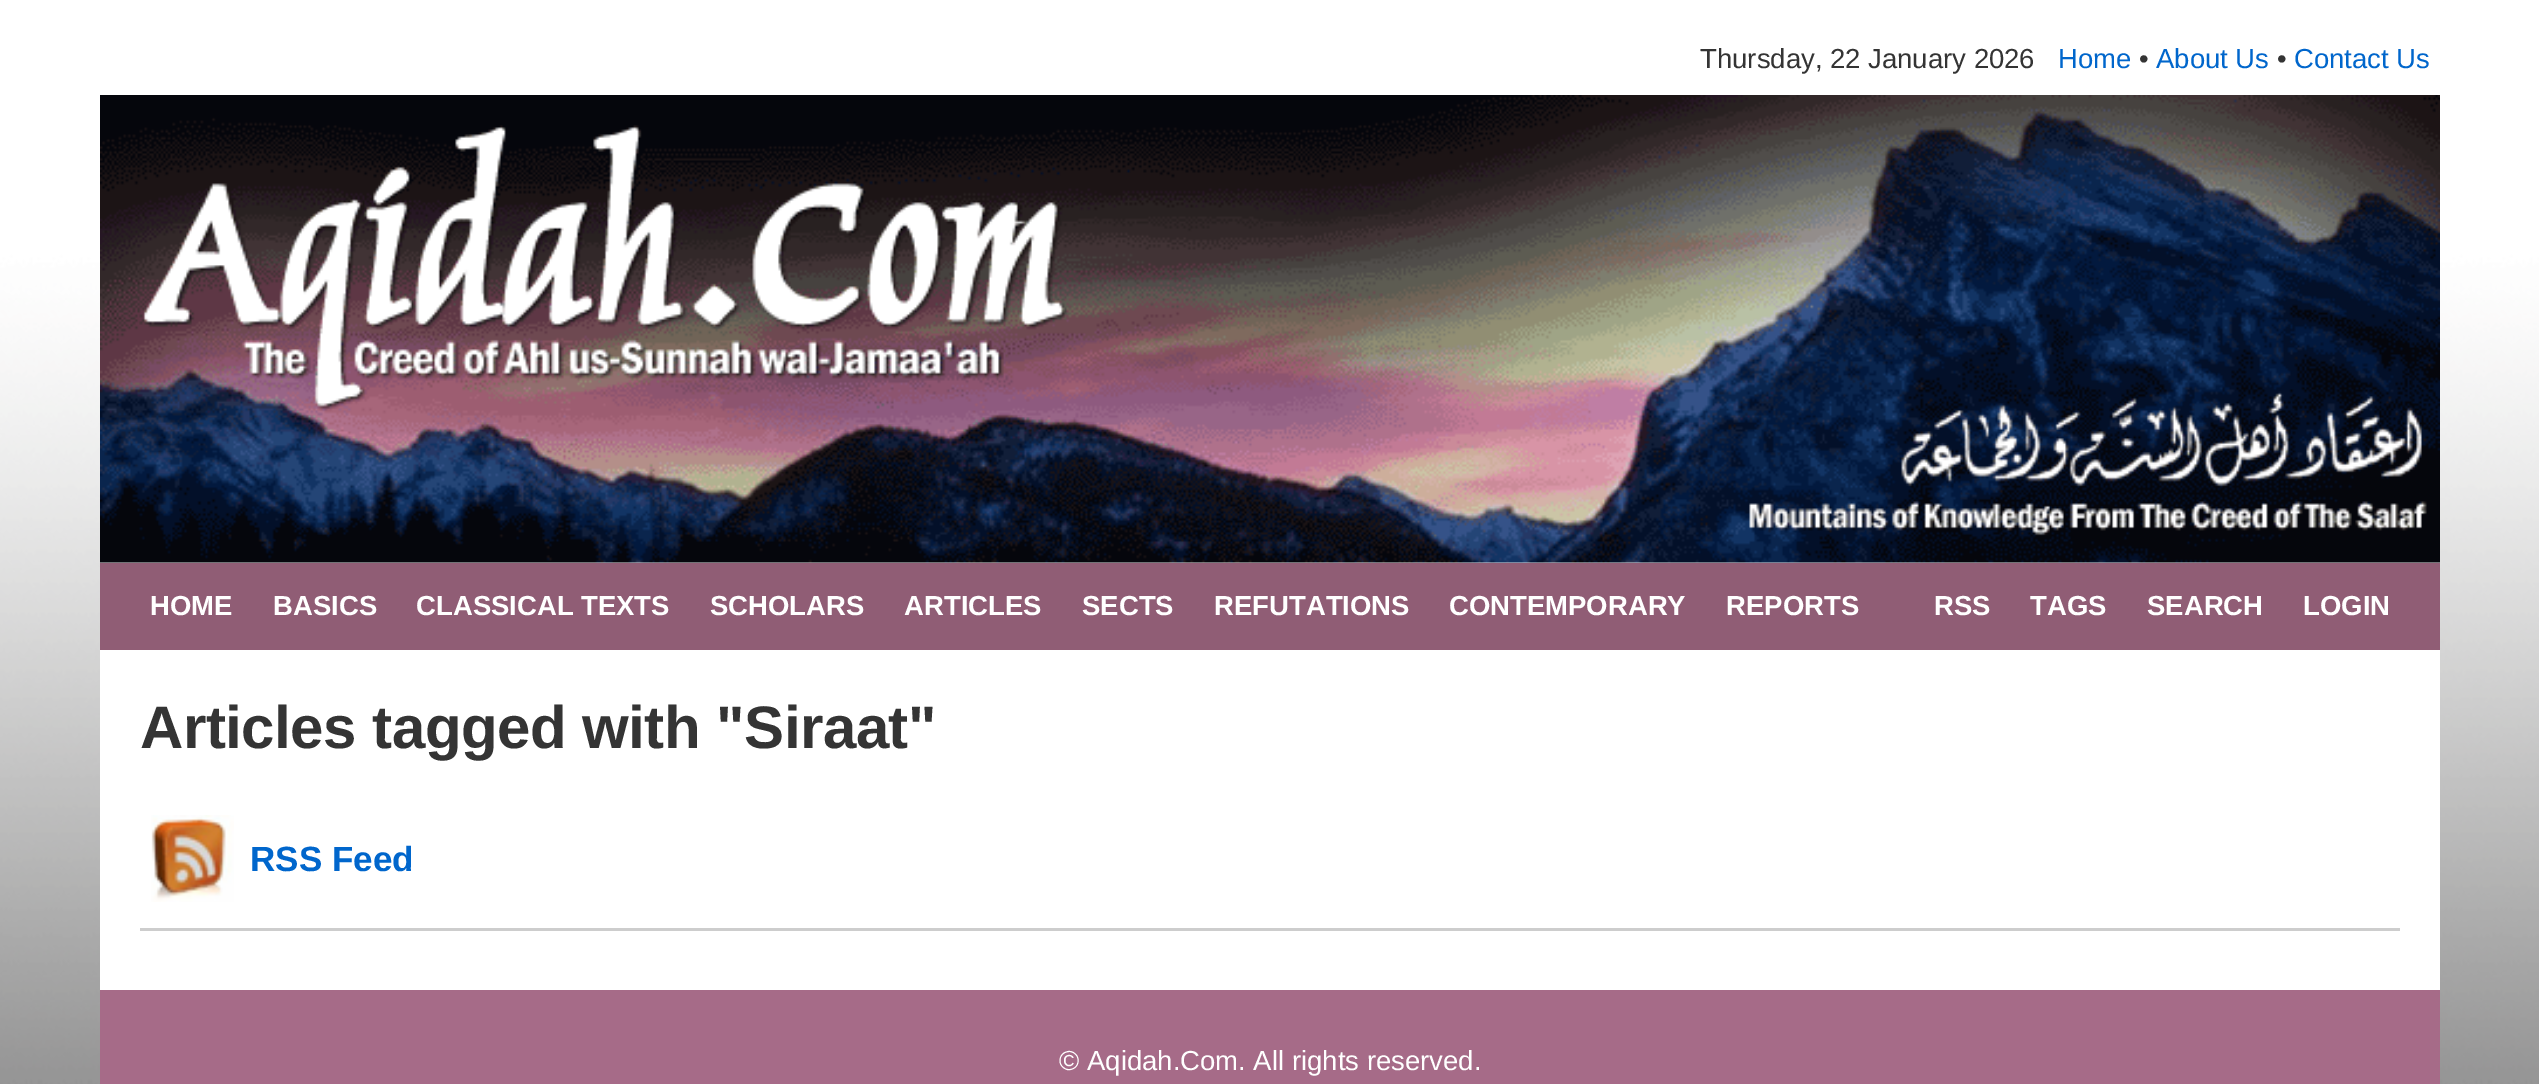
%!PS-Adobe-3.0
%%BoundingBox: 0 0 2539 1084
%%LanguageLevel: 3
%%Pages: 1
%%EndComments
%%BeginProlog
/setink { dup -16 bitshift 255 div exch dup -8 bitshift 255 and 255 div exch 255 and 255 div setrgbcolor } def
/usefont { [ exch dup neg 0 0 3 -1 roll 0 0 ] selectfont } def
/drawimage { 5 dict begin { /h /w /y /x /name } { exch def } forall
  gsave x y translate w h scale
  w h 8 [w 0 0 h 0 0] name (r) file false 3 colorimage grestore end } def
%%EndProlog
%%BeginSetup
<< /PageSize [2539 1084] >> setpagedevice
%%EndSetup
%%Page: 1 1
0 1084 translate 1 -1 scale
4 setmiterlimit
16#FFFFFF setink
0 0 2539 1084 rectfill
(img1.raw) 0 0 2539 1084 drawimage
/LiberationSans-Regular 27.5 usefont
16#343434 setink
1700 68 moveto (Thursday, 22 January 2026) show
16#0066CC setink
2058 68 moveto (Home) show
16#343434 setink
2139 68 moveto (•) show
16#0066CC setink
2156 68 moveto (About Us) show
16#343434 setink
2277 68 moveto (•) show
16#0066CC setink
2294 68 moveto (Contact Us) show
(img2.raw) 100 95 2340 468 drawimage
16#905D75 setink
100 563 2340 87 rectfill
/LiberationSans-Bold 27.5 usefont
16#FFFFFF setink
[
    [(HOME) 150 615]
    [(BASICS) 273 615]
    [(CLASSICAL TEXTS) 416 615]
    [(SCHOLARS) 710 615]
    [(ARTICLES) 904 615]
    [(SECTS) 1082 615]
    [(REFUTATIONS) 1214 615]
    [(CONTEMPORARY) 1449 615]
    [(REPORTS) 1726 615]
    [(RSS) 1934 615]
    [(TAGS) 2030 615]
    [(SEARCH) 2147 615]
    [(LOGIN) 2303 615]
] { aload pop moveto show } forall
100 650 2340 340 rectfill
/LiberationSans-Bold 60 usefont
16#343434 setink
140 748 moveto -0.5 0 (Articles tagged with "Siraat") ashow
(img3.raw) 151 815 83 87 drawimage
/LiberationSans-Bold 35 usefont
16#0066CC setink
250 871 moveto (RSS Feed) show
16#CDCDCD setink
140 928 2260 3 rectfill
16#A66B88 setink
100 990 2340 94 rectfill
/LiberationSans-Regular 27.5 usefont
16#FFFFFF setink
1059 1070 moveto (© Aqidah.Com. All rights reserved.) show
showpage
%%EOF
